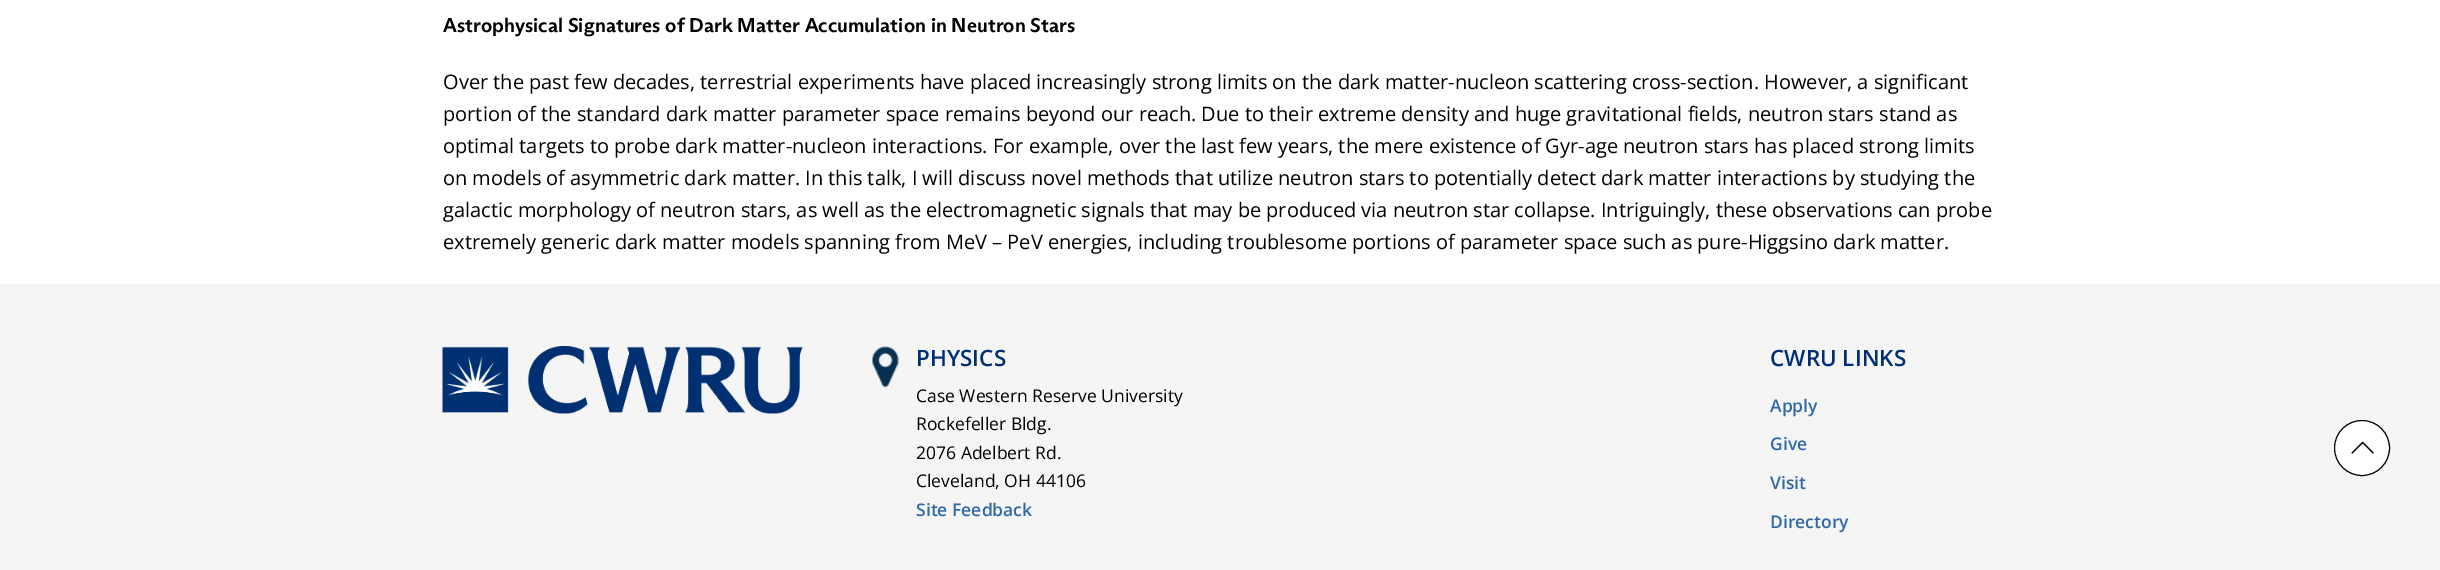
%!PS-Adobe-3.0
%%BoundingBox: 0 0 2440 570
%%LanguageLevel: 3
%%Pages: 1
%%EndComments
%%BeginProlog
/setink { dup -16 bitshift 255 div exch dup -8 bitshift 255 and 255 div exch 255 and 255 div setrgbcolor } def
/usefont { [ exch dup neg 0 0 3 -1 roll 0 0 ] selectfont } def
/disc { newpath 0 360 arc closepath } def
/drawimage { 5 dict begin { /h /w /y /x /name } { exch def } forall
  gsave x y translate w h scale
  w h 8 [w 0 0 h 0 0] name (r) file false 3 colorimage grestore end } def
%%EndProlog
%%BeginSetup
<< /PageSize [2440 570] >> setpagedevice
%%EndSetup
%%Page: 1 1
0 570 translate 1 -1 scale
4 setmiterlimit
16#FFFFFF setink
0 0 2440 570 rectfill
/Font-Bold 20 usefont
16#000000 setink
443 32 moveto (Astrophysical Signatures of Dark Matter Accumulation in Neutron Stars) show
/OpenSans-Regular 20 usefont
[
    [(Over the past few decades, terrestrial experiments have placed increasingly strong limits on the dark matter-nucleon scattering cross-section. However, a significant) 443 89]
    [(portion of the standard dark matter parameter space remains beyond our reach. Due to their extreme density and huge gravitational fields, neutron stars stand as) 443 121]
    [(optimal targets to probe dark matter-nucleon interactions. For example, over the last few years, the mere existence of Gyr-age neutron stars has placed strong limits) 443 153]
    [(on models of asymmetric dark matter. In this talk, I will discuss novel methods that utilize neutron stars to potentially detect dark matter interactions by studying the) 443 185]
    [(galactic morphology of neutron stars, as well as the electromagnetic signals that may be produced via neutron star collapse. Intriguingly, these observations can probe) 443 217]
    [(extremely generic dark matter models spanning from MeV – PeV energies, including troublesome portions of parameter space such as pure-Higgsino dark matter.) 443 249]
] { aload pop moveto show } forall
16#F5F5F5 setink
0 284 2440 286 rectfill
(img1.raw) 442 346 361 68 drawimage
(img2.raw) 872 346 27 42 drawimage
/OpenSans-SemiBold 22.5 usefont
16#003071 setink
916 366 moveto (PHYSICS) show
/OpenSans-Regular 17.5 usefont
16#000000 setink
[
    [(Case Western Reserve University) 916 402]
    [(Rockefeller Bldg.) 916 430]
    [(2076 Adelbert Rd.) 916 459]
    [(Cleveland, OH 44106) 916 487]
] { aload pop moveto show } forall
/OpenSans-SemiBold 17.5 usefont
16#3168A6 setink
916 516 moveto (Site Feedback) show
/OpenSans-SemiBold 22.5 usefont
16#003071 setink
1770 366 moveto (CWRU LINKS) show
/OpenSans-SemiBold 17.5 usefont
16#3168A6 setink
[
    [(Apply) 1770 412]
    [(Give) 1770 450]
    [(Visit) 1770 489]
    [(Directory) 1770 528]
] { aload pop moveto show } forall
16#FFFFFF setink
2362 448 27.5 disc gsave fill grestore
16#000000 setink
stroke
(img3.raw) 2351 441 23 13 drawimage
showpage
%%EOF
